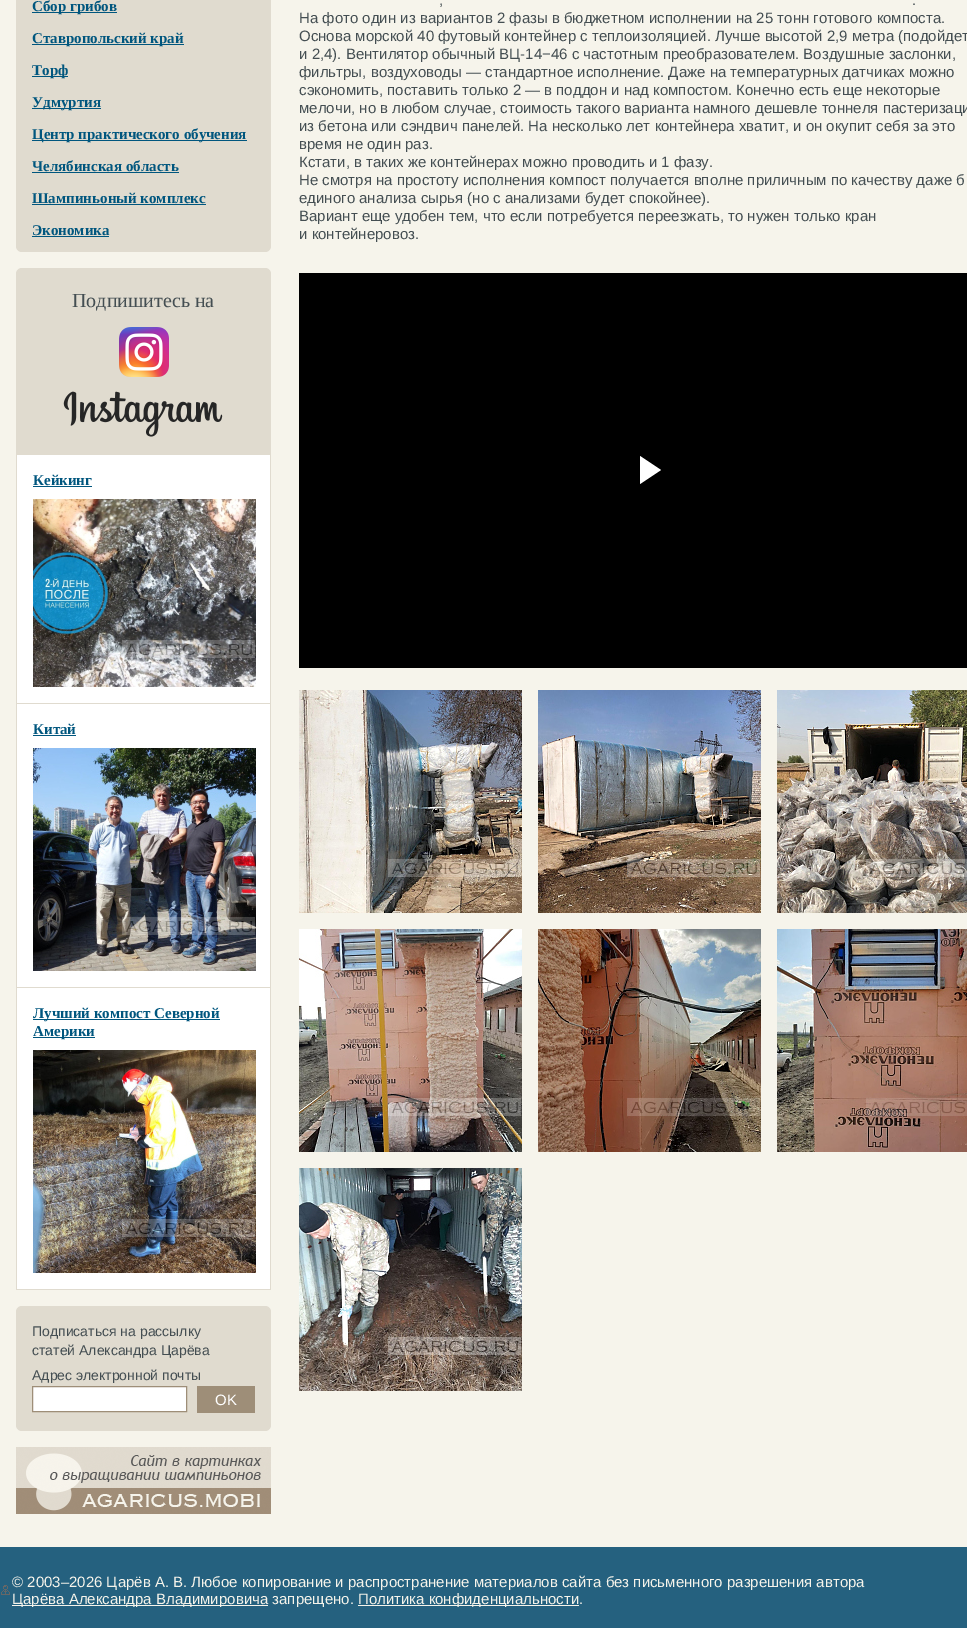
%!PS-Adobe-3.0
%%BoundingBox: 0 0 967 1628
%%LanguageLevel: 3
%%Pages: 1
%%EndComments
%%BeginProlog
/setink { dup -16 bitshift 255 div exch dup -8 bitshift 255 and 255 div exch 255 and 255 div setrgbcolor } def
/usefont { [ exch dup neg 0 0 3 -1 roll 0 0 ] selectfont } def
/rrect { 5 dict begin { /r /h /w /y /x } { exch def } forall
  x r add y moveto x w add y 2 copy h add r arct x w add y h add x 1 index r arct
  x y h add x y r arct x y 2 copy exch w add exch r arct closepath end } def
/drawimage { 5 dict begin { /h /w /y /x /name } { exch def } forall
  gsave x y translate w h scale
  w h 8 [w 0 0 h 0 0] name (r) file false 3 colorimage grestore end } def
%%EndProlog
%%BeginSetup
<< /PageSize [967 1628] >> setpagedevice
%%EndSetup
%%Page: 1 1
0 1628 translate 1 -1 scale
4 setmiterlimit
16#25617F setink
0 0 967 1628 rectfill
16#F6F4EB setink
0 0 967 1547 rectfill
16#E0DBCF setink
16 -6 255 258 6 rrect fill
16#00567E setink
32 12 85 1 rectfill
/LiberationSerif-Bold 15 usefont
32 11 moveto (Сбор грибов) show
32 44 152 1 rectfill
32 43 moveto (Ставропольский край) show
32 76 36 1 rectfill
32 75 moveto (Торф) show
32 108 69 1 rectfill
32 107 moveto (Удмуртия) show
32 140 215 1 rectfill
32 139 moveto (Центр практического обучения) show
32 171 moveto (Челябинская область) show
32 172 147 1 rectfill
32 203 moveto (Шампиньоный комплекс) show
32 204 174 1 rectfill
32 235 moveto (Экономика) show
32 236 77 1 rectfill
16#E0DBCF setink
16 268 255 1022 6 rrect fill
/LiberationSerif-Regular 20 usefont
16#444E52 setink
72 307 moveto (Подпишитесь на) show
(img1.raw) 119 327 50 50 drawimage
(img2.raw) 63 391 160 46 drawimage
16#FFFFFF setink
17 455 253 248 rectfill
/LiberationSerif-Bold 15 usefont
16#00567E setink
33 485 moveto (Кейкинг) show
33 486 59 1 rectfill
(img3.raw) 33 499 223 188 drawimage
16#FFFFFF setink
17 704 253 283 rectfill
16#00567E setink
33 734 moveto (Китай) show
33 735 43 1 rectfill
(img4.raw) 33 748 223 223 drawimage
[
    [17 988 253 301 16#FFFFFF]
    [270 1285 1 5 16#E0DBCF]
    [16 1289 255 1 16#E0DBCF]
    [16 1285 1 5 16#E0DBCF]
    [33 1019 187 1 16#00567E]
] { aload pop setink rectfill } forall
33 1018 moveto (Лучший компост Северной) show
33 1037 62 1 rectfill
33 1036 moveto (Америки) show
(img5.raw) 33 1050 223 223 drawimage
16#E0DBCF setink
16 1306 255 125 6 rrect fill
/LiberationSans-Regular 14 usefont
16#444E52 setink
[
    [(Подписаться на рассылку) 32 1336]
    [(статей Александра Царёва) 32 1355]
    [(Адрес электронной почты) 32 1380]
] { aload pop moveto show } forall
16#FFFFFF setink
32.5 1386.5 moveto 186.5 1386.5 lineto 186.5 1411.5 lineto 32.5 1411.5 lineto closepath gsave fill grestore
16#9E8E78 setink
stroke
197 1386 58 27 rectfill
/LiberationSans-Regular 15 usefont
16#FFFFFF setink
215 1405 moveto (OK) show
(img6.raw) 16 1447 255 67 drawimage
16#444E52 setink
[
    [(,) 439 5]
    [(.) 912 5]
    [(На фото один из вариантов 2 фазы в бюджетном исполнении на 25 тонн готового компоста.) 299 23]
    [(Основа морской 40 футовый контейнер с теплоизоляцией. Лучше высотой 2,9 метра \(подойдет) 299 41]
    [(и 2,4\). Вентилятор обычный ВЦ-14−46 с частотным преобразователем. Воздушные заслонки,) 299 59]
    [(фильтры, воздуховоды — стандартное исполнение. Даже на температурных датчиках можно) 299 77]
    [(сэкономить, поставить только 2 — в поддон и над компостом. Конечно есть еще некоторые) 299 95]
    [(мелочи, но в любом случае, стоимость такого варианта намного дешевле тоннеля пастеризаци) 299 113]
    [(из бетона или сэндвич панелей. На несколько лет контейнера хватит, и он окупит себя за это) 299 131]
    [(время не один раз.) 299 149]
    [(Кстати, в таких же контейнерах можно проводить и 1 фазу.) 299 167]
    [(Не смотря на простоту исполнения компост получается вполне приличным по качеству даже б) 299 185]
    [(единого анализа сырья \(но с анализами будет спокойнее\).) 299 203]
    [(Вариант еще удобен тем, что если потребуется переезжать, то нужен только кран) 299 221]
    [(и контейнеровоз.) 299 239]
] { aload pop moveto show } forall
16#000000 setink
299 273 668 395 rectfill
(img7.raw) 640 456 21 28 drawimage
(img8.raw) 299 690 223 223 drawimage
(img9.raw) 538 690 223 223 drawimage
(img10.raw) 777 690 190 223 drawimage
(img11.raw) 299 929 223 223 drawimage
(img12.raw) 538 929 223 223 drawimage
(img13.raw) 777 929 190 223 drawimage
(img14.raw) 299 1168 223 223 drawimage
(img15.raw) 1 1585 9 10 drawimage
16#F6F4EB setink
12 1587 moveto (© 2003–2026 Царёв А. В. Любое копирование и распространение материалов сайта без письменного разрешения автора) show
12 1605 256 1 rectfill
12 1604 moveto (Царёва Александра Владимировича запрещено.) show
358 1605 221 1 rectfill
358 1604 moveto (Политика конфиденциальности.) show
showpage
%%EOF
